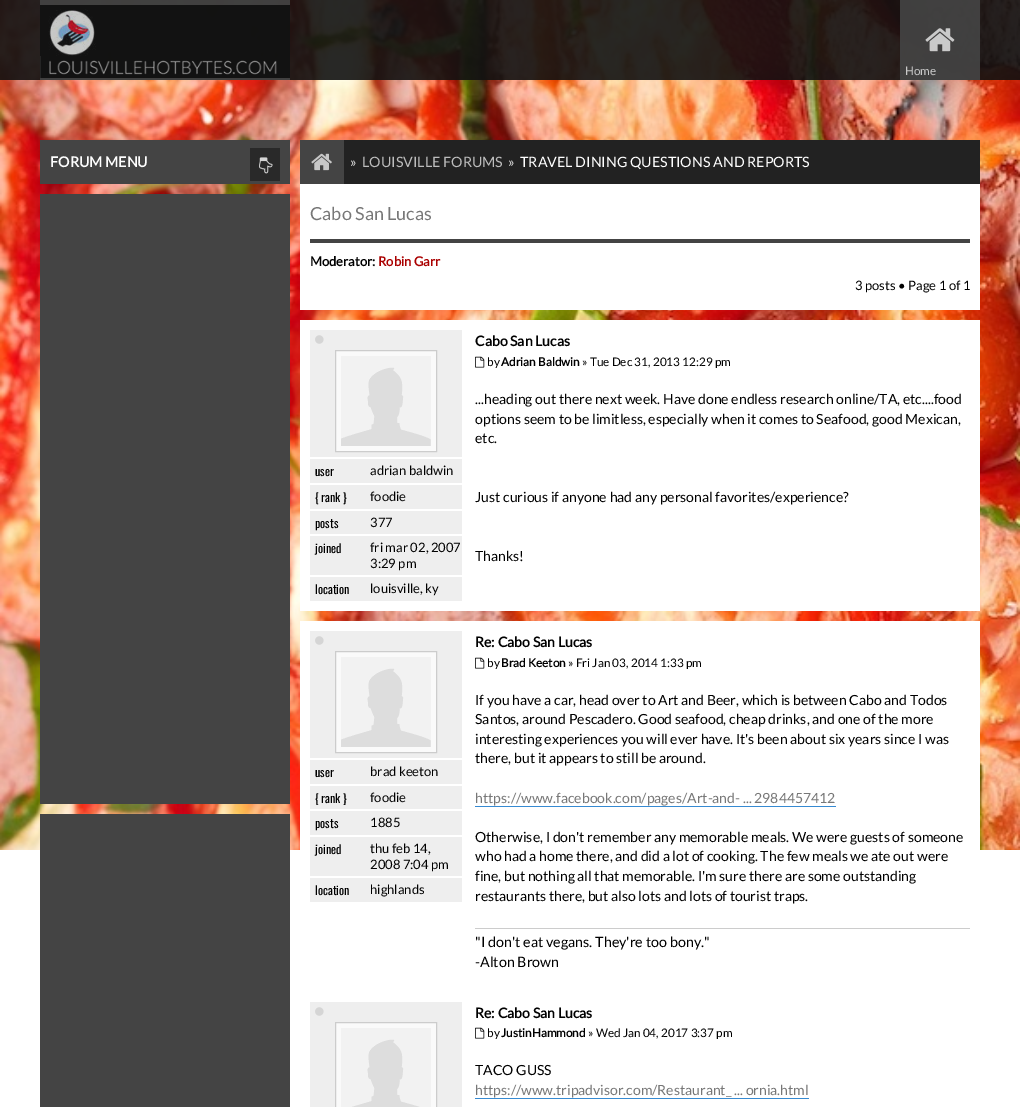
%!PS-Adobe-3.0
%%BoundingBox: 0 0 1020 1107
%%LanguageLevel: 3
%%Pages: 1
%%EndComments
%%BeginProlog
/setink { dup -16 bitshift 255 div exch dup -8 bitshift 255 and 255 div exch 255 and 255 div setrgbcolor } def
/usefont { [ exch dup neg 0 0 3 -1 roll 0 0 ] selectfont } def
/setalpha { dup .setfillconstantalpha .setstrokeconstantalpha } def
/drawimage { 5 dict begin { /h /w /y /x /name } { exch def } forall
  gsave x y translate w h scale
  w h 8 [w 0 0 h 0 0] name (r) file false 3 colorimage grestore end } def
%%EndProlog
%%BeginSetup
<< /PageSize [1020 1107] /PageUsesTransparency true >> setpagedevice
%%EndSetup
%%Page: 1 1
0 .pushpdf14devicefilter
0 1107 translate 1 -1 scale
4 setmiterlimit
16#FFFFFF setink
0 0 1020 1107 rectfill
(img3.raw) 0 0 1020 850 drawimage
0.9 setalpha
16#111111 setink
0 0 1020 80 rectfill
16#444444 setink
40 0 250 80 rectfill
1 setalpha
(img1.raw) 40 5 250 73 drawimage
0.9 setalpha
900 0 80 80 rectfill
1 setalpha
(img2.raw) 925 28 30 24 drawimage
/Lato-Regular 11.75 usefont
16#CACACA setink
905 75 moveto (Home) show
16#444444 setink
40 140 250 44 rectfill
/Lato-Bold 14.3 usefont
16#FFFFFF setink
50 167 moveto (FORUM MENU) show
16#292929 setink
250 148 30 33 rectfill
(img4.raw) 259 157 14 17 drawimage
[
    [40 194 250 610 16#444444]
    [40 814 250 293 16#444444]
    [344 140 636 44 16#222222]
    [300 140 44 44 16#444444]
] { aload pop setink rectfill } forall
(img5.raw) 311 153 21 18 drawimage
/Lato-Regular 14.3 usefont
16#DDDDDD setink
350 167 moveto (») show
16#BDBDBD setink
362 167 moveto (LOUISVILLE FORUMS) show
16#DDDDDD setink
508 167 moveto (») show
16#FFFFFF setink
520 167 moveto (TRAVEL DINING QUESTIONS AND REPORTS) show
300 184 680 126 rectfill
16#444444 setink
310 239 660 4 rectfill
/Lato-Regular 18 usefont
16#777777 setink
310 220 moveto (Cabo San Lucas) show
/Lato-Bold 13 usefont
16#000000 setink
310 266 moveto (Moderator:) show
16#AA0000 setink
378 266 moveto (Robin Garr) show
/Lato-Regular 13 usefont
16#000000 setink
855 290 moveto (3 posts • Page 1 of 1) show
16#FFFFFF setink
300 320 680 291 rectfill
16#EEEEEE setink
310 330 152 127 rectfill
(img6.raw) 315 335 9 9 drawimage
16#FAFAFA setink
335.5 350.5 moveto 436.5 350.5 lineto 436.5 451.5 lineto 335.5 451.5 lineto closepath gsave fill grestore
16#CCCCCC setink
stroke
(img7.raw) 341 356 90 90 drawimage
16#EEEEEE setink
310 459 152 24 rectfill
/Oswald-Regular 12 usefont
16#000000 setink
315 476 moveto (user) show
/Lato-Regular 13 usefont
370 475 moveto (adrian baldwin) show
16#EEEEEE setink
310 485 152 24 rectfill
/Oswald-Regular 12 usefont
16#000000 setink
315 502 moveto ({ rank }) show
/Lato-Regular 13 usefont
370 501 moveto (foodie) show
16#EEEEEE setink
310 511 152 23 rectfill
/Oswald-Regular 12 usefont
16#000000 setink
315 528 moveto (posts) show
/Lato-Regular 13 usefont
370 527 moveto (377) show
16#EEEEEE setink
310 536 152 39 rectfill
/Oswald-Regular 12 usefont
16#000000 setink
315 553 moveto (joined) show
/Lato-Regular 13 usefont
370 552 moveto (fri mar 02, 2007) show
370 568 moveto (3:29 pm) show
16#EEEEEE setink
310 577 152 24 rectfill
/Oswald-Regular 12 usefont
16#000000 setink
315 594 moveto (location) show
/Lato-Regular 13 usefont
370 593 moveto (louisville, ky) show
/Lato-Bold 14 usefont
475 346 moveto (Cabo San Lucas) show
(img8.raw) 475 356 10 12 drawimage
/Lato-Regular 11.75 usefont
487 366 moveto (by) show
/Lato-Bold 11.75 usefont
501 366 moveto (Adrian Baldwin) show
/Lato-Regular 11.75 usefont
582 366 moveto (» Tue Dec 31, 2013 12:29 pm) show
/Lato-Regular 14 usefont
[
    [(...heading out there next week. Have done endless research online/TA, etc....food) 475 404]
    [(options seem to be limitless, especially when it comes to Seafood, good Mexican,) 475 424]
    [(etc.) 475 443]
    [(Just curious if anyone had any personal favorites/experience?) 475 502]
    [(Thanks!) 475 561]
] { aload pop moveto show } forall
16#FFFFFF setink
300 621 680 229 rectfill
16#EEEEEE setink
310 631 152 127 rectfill
(img6.raw) 315 636 9 9 drawimage
16#FAFAFA setink
335.5 651.5 moveto 436.5 651.5 lineto 436.5 752.5 lineto 335.5 752.5 lineto closepath gsave fill grestore
16#CCCCCC setink
stroke
(img7.raw) 341 657 90 90 drawimage
16#EEEEEE setink
310 760 152 24 rectfill
/Oswald-Regular 12 usefont
16#000000 setink
315 777 moveto (user) show
/Lato-Regular 13 usefont
370 776 moveto (brad keeton) show
16#EEEEEE setink
310 786 152 23 rectfill
gsave
315 790 50 15 rectclip
/Oswald-Regular 12 usefont
16#000000 setink
315 803 moveto ({ rank }) show
grestore
16#000000 setink
370 802 moveto (foodie) show
16#EEEEEE setink
310 811 152 24 rectfill
/Oswald-Regular 12 usefont
16#000000 setink
315 828 moveto (posts) show
/Lato-Regular 13 usefont
370 827 moveto (1885) show
16#EEEEEE setink
310 837 152 39 rectfill
/Oswald-Regular 12 usefont
16#000000 setink
315 854 moveto (joined) show
/Lato-Regular 13 usefont
370 853 moveto (thu feb 14,) show
370 869 moveto (2008 7:04 pm) show
16#EEEEEE setink
310 878 152 24 rectfill
/Oswald-Regular 12 usefont
16#000000 setink
315 895 moveto (location) show
/Lato-Regular 13 usefont
370 894 moveto (highlands) show
/Lato-Bold 14 usefont
475 647 moveto (Re: Cabo San Lucas) show
(img8.raw) 475 657 10 12 drawimage
/Lato-Regular 11.75 usefont
487 667 moveto (by) show
/Lato-Bold 11.75 usefont
501 667 moveto (Brad Keeton) show
/Lato-Regular 11.75 usefont
568 667 moveto (» Fri Jan 03, 2014 1:33 pm) show
/Lato-Regular 14 usefont
[
    [(If you have a car, head over to Art and Beer, which is between Cabo and Todos) 475 705]
    [(Santos, around Pescadero. Good seafood, cheap drinks, and one of the more) 475 724]
    [(interesting experiences you will ever have. It's been about six years since I was) 475 744]
    [(there, but it appears to still be around.) 475 763]
] { aload pop moveto show } forall
16#777777 setink
475 803 moveto (https://www.facebook.com/pages/Art-and- ... 2984457412) show
16#368AD2 setink
475 806 361 1 rectfill
16#000000 setink
[
    [(Otherwise, I don't remember any memorable meals. We were guests of someone) 475 842]
    [(who had a home there, and did a lot of cooking. The few meals we ate out were) 475 861]
    [(fine, but nothing all that memorable. I'm sure there are some outstanding) 475 881]
    [(restaurants there, but also lots and lots of tourist traps.) 475 901]
] { aload pop moveto show } forall
16#CCCCCC setink
475 928 495 1 rectfill
/Lato-Regular 14.3 usefont
16#000000 setink
475 947 moveto ("I don't eat vegans. They're too bony.") show
475 967 moveto (-Alton Brown) show
16#EEEEEE setink
310 1002 152 105 rectfill
(img6.raw) 315 1007 9 9 drawimage
16#FAFAFA setink
335.5 1022.5 moveto 436.5 1022.5 lineto 436.5 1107.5 lineto 335.5 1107.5 lineto closepath gsave fill grestore
16#CCCCCC setink
stroke
(img9.raw) 341 1028 90 79 drawimage
/Lato-Bold 14 usefont
16#000000 setink
475 1018 moveto (Re: Cabo San Lucas) show
(img8.raw) 475 1027 10 12 drawimage
/Lato-Regular 11.75 usefont
487 1037 moveto (by) show
/Lato-Bold 11.75 usefont
501 1037 moveto (JustinHammond) show
/Lato-Regular 11.75 usefont
588 1037 moveto (» Wed Jan 04, 2017 3:37 pm) show
/Lato-Regular 14 usefont
475 1075 moveto (TACO GUSS) show
16#777777 setink
475 1095 moveto (https://www.tripadvisor.com/Restaurant_ ... ornia.html) show
16#368AD2 setink
475 1098 334 1 rectfill
.poppdf14devicefilter showpage
%%EOF
